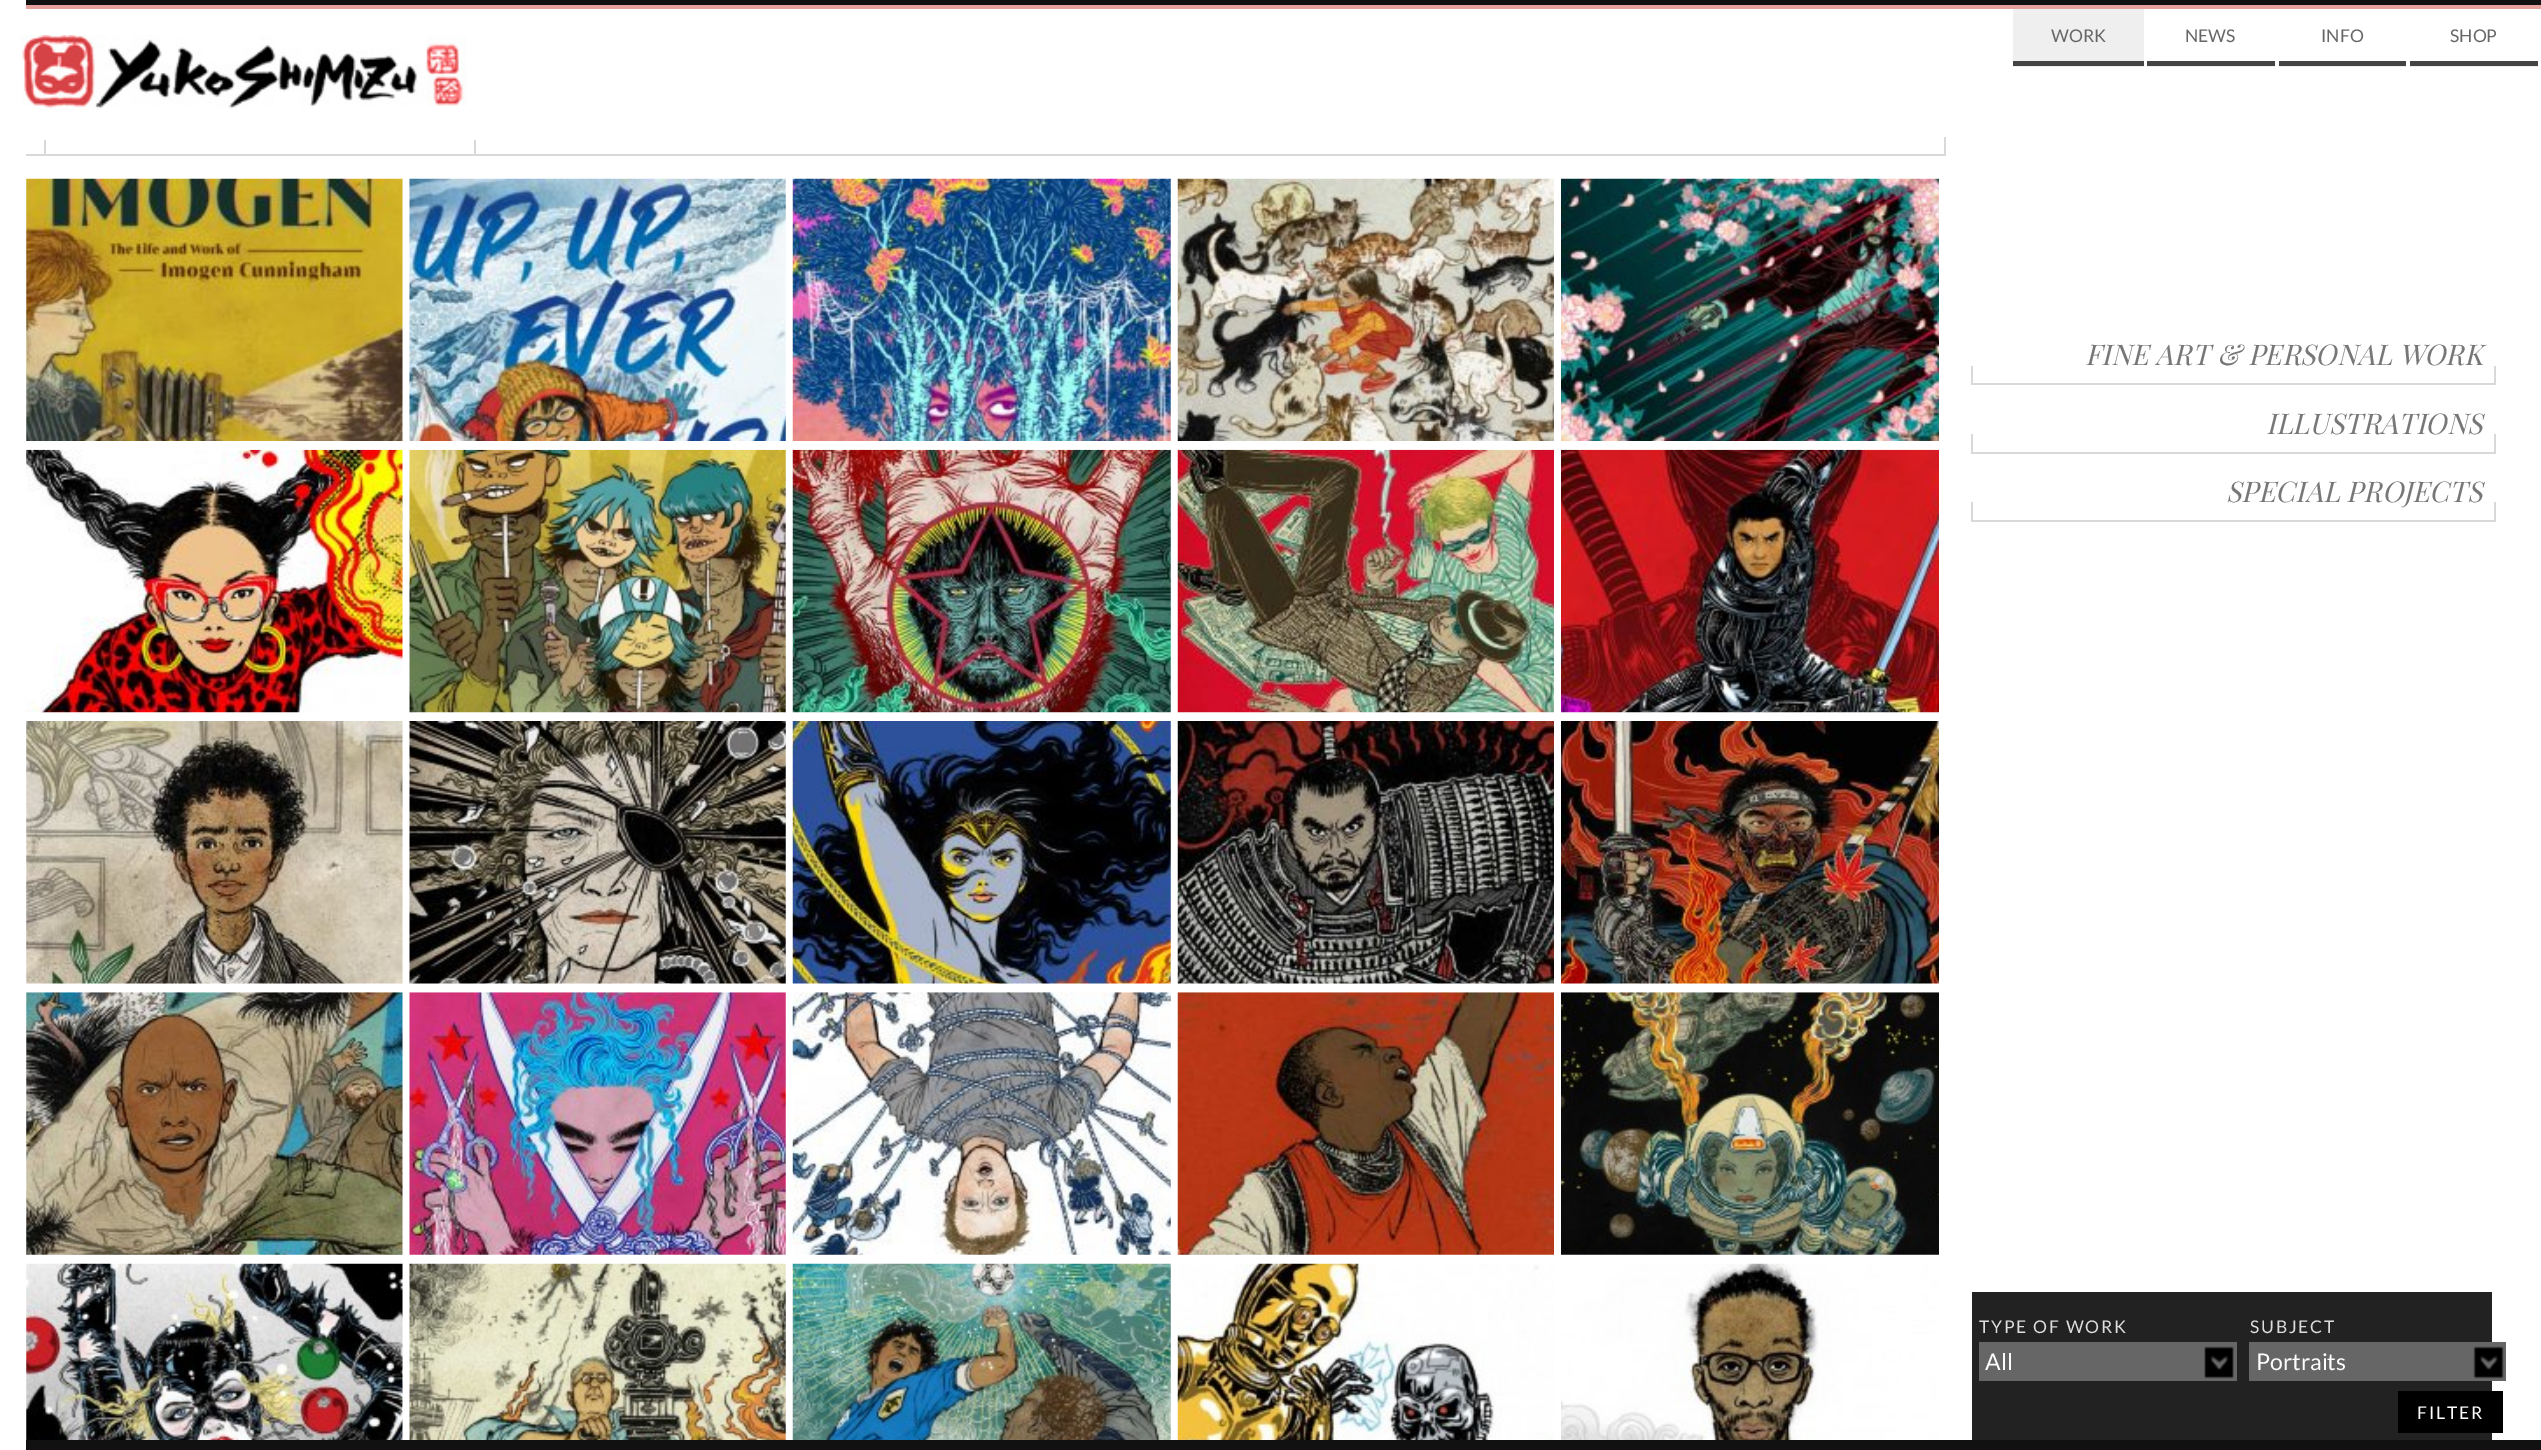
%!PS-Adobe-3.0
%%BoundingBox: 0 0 2541 1450
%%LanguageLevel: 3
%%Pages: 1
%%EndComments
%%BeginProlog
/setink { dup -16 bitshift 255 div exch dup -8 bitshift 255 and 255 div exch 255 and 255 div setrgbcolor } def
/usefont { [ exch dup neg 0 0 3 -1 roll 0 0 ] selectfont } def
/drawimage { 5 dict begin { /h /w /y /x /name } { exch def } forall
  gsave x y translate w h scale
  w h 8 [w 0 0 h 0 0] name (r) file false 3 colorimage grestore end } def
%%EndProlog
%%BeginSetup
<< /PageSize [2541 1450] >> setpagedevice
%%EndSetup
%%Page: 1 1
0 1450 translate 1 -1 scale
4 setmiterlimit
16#FFFFFF setink
0 0 2541 1450 rectfill
[
    [26 0 2515 5 16#111111]
    [26 5 2515 4 16#E6A19C]
    [474 137 2 17 16#D9D9D9]
    [44 137 2 17 16#D9D9D9]
    [44 137 432 3 16#FFFFFF]
] { aload pop setink rectfill } forall
(img1.raw) 21 35 446 75 drawimage
16#EFEFEF setink
2013 9 131 58 rectfill
16#444444 setink
2013 61 131 5 rectfill
/Lato-Regular 17.5 usefont
16#666666 setink
2051 42 moveto (WORK) show
16#EFEFEF setink
2147 66 128 1 rectfill
16#444444 setink
2147 61 128 5 rectfill
16#666666 setink
2185 42 moveto (NEWS) show
16#EFEFEF setink
2279 66 127 1 rectfill
16#444444 setink
2279 61 127 5 rectfill
16#666666 setink
2321 42 moveto (INFO) show
16#EFEFEF setink
2410 66 128 1 rectfill
16#444444 setink
2410 61 128 5 rectfill
16#666666 setink
2450 42 moveto (SHOP) show
16#D9D9D9 setink
26 154 1920 2 rectfill
1944 137 2 17 rectfill
(img2.raw) 26 178 377 263 drawimage
(img3.raw) 409 178 377 263 drawimage
(img4.raw) 792 178 379 263 drawimage
(img5.raw) 1177 178 377 263 drawimage
(img6.raw) 1561 178 378 263 drawimage
(img7.raw) 26 449 377 264 drawimage
(img8.raw) 409 449 377 264 drawimage
(img9.raw) 792 449 379 264 drawimage
(img10.raw) 1177 449 377 264 drawimage
(img11.raw) 1561 449 378 264 drawimage
(img12.raw) 26 721 377 263 drawimage
(img13.raw) 409 721 377 263 drawimage
(img14.raw) 792 721 379 263 drawimage
(img15.raw) 1177 721 377 263 drawimage
(img16.raw) 1561 721 378 263 drawimage
(img17.raw) 26 992 377 263 drawimage
(img18.raw) 409 992 377 263 drawimage
(img19.raw) 792 992 379 263 drawimage
(img20.raw) 1177 992 377 263 drawimage
(img21.raw) 1561 992 378 263 drawimage
(img22.raw) 26 1263 377 177 drawimage
(img23.raw) 409 1263 377 177 drawimage
(img24.raw) 792 1263 379 177 drawimage
(img25.raw) 1177 1263 377 177 drawimage
(img26.raw) 1561 1263 378 177 drawimage
[
    [1971 383 525 2 16#D9D9D9]
    [2494 366 2 17 16#D9D9D9]
    [1971 366 2 17 16#D9D9D9]
] { aload pop setink rectfill } forall
/PlayfairDisplay-Italic 28.5 usefont
16#777777 setink
2085 365 moveto (FINE ART & PERSONAL WORK) show
[
    [1971 452 525 2 16#D9D9D9]
    [2494 434 2 18 16#D9D9D9]
    [1971 434 2 18 16#D9D9D9]
] { aload pop setink rectfill } forall
16#777777 setink
2266 434 moveto (ILLUSTRATIONS) show
[
    [1971 520 525 2 16#D9D9D9]
    [2494 502 2 18 16#D9D9D9]
    [1971 502 2 18 16#D9D9D9]
] { aload pop setink rectfill } forall
16#777777 setink
2226 502 moveto (SPECIAL PROJECTS) show
16#222222 setink
1972 1292 520 148 rectfill
/Lato-Regular 17.5 usefont
16#DDDDDD setink
1979 1333 moveto 1.75 0 (TYPE OF WORK) ashow
16#666666 setink
1979 1342 258 39 rectfill
(img27.raw) 2204 1346 30 33 drawimage
/Lato-Regular 23 usefont
16#FDFDFD setink
1985 1370 moveto (All) show
/Lato-Regular 17.5 usefont
16#DDDDDD setink
2250 1333 moveto 1.75 0 (SUBJECT) ashow
16#666666 setink
2249 1342 257 39 rectfill
(img28.raw) 2473 1346 31 33 drawimage
/Lato-Regular 23 usefont
16#FDFDFD setink
2256 1370 moveto (Portraits) show
16#000000 setink
2398 1391 105 42 rectfill
/Lato-Regular 17.5 usefont
16#FDFDFD setink
2417 1419 moveto 1.75 0 (FILTER) ashow
16#111111 setink
26 1440 2515 10 rectfill
showpage
%%EOF
